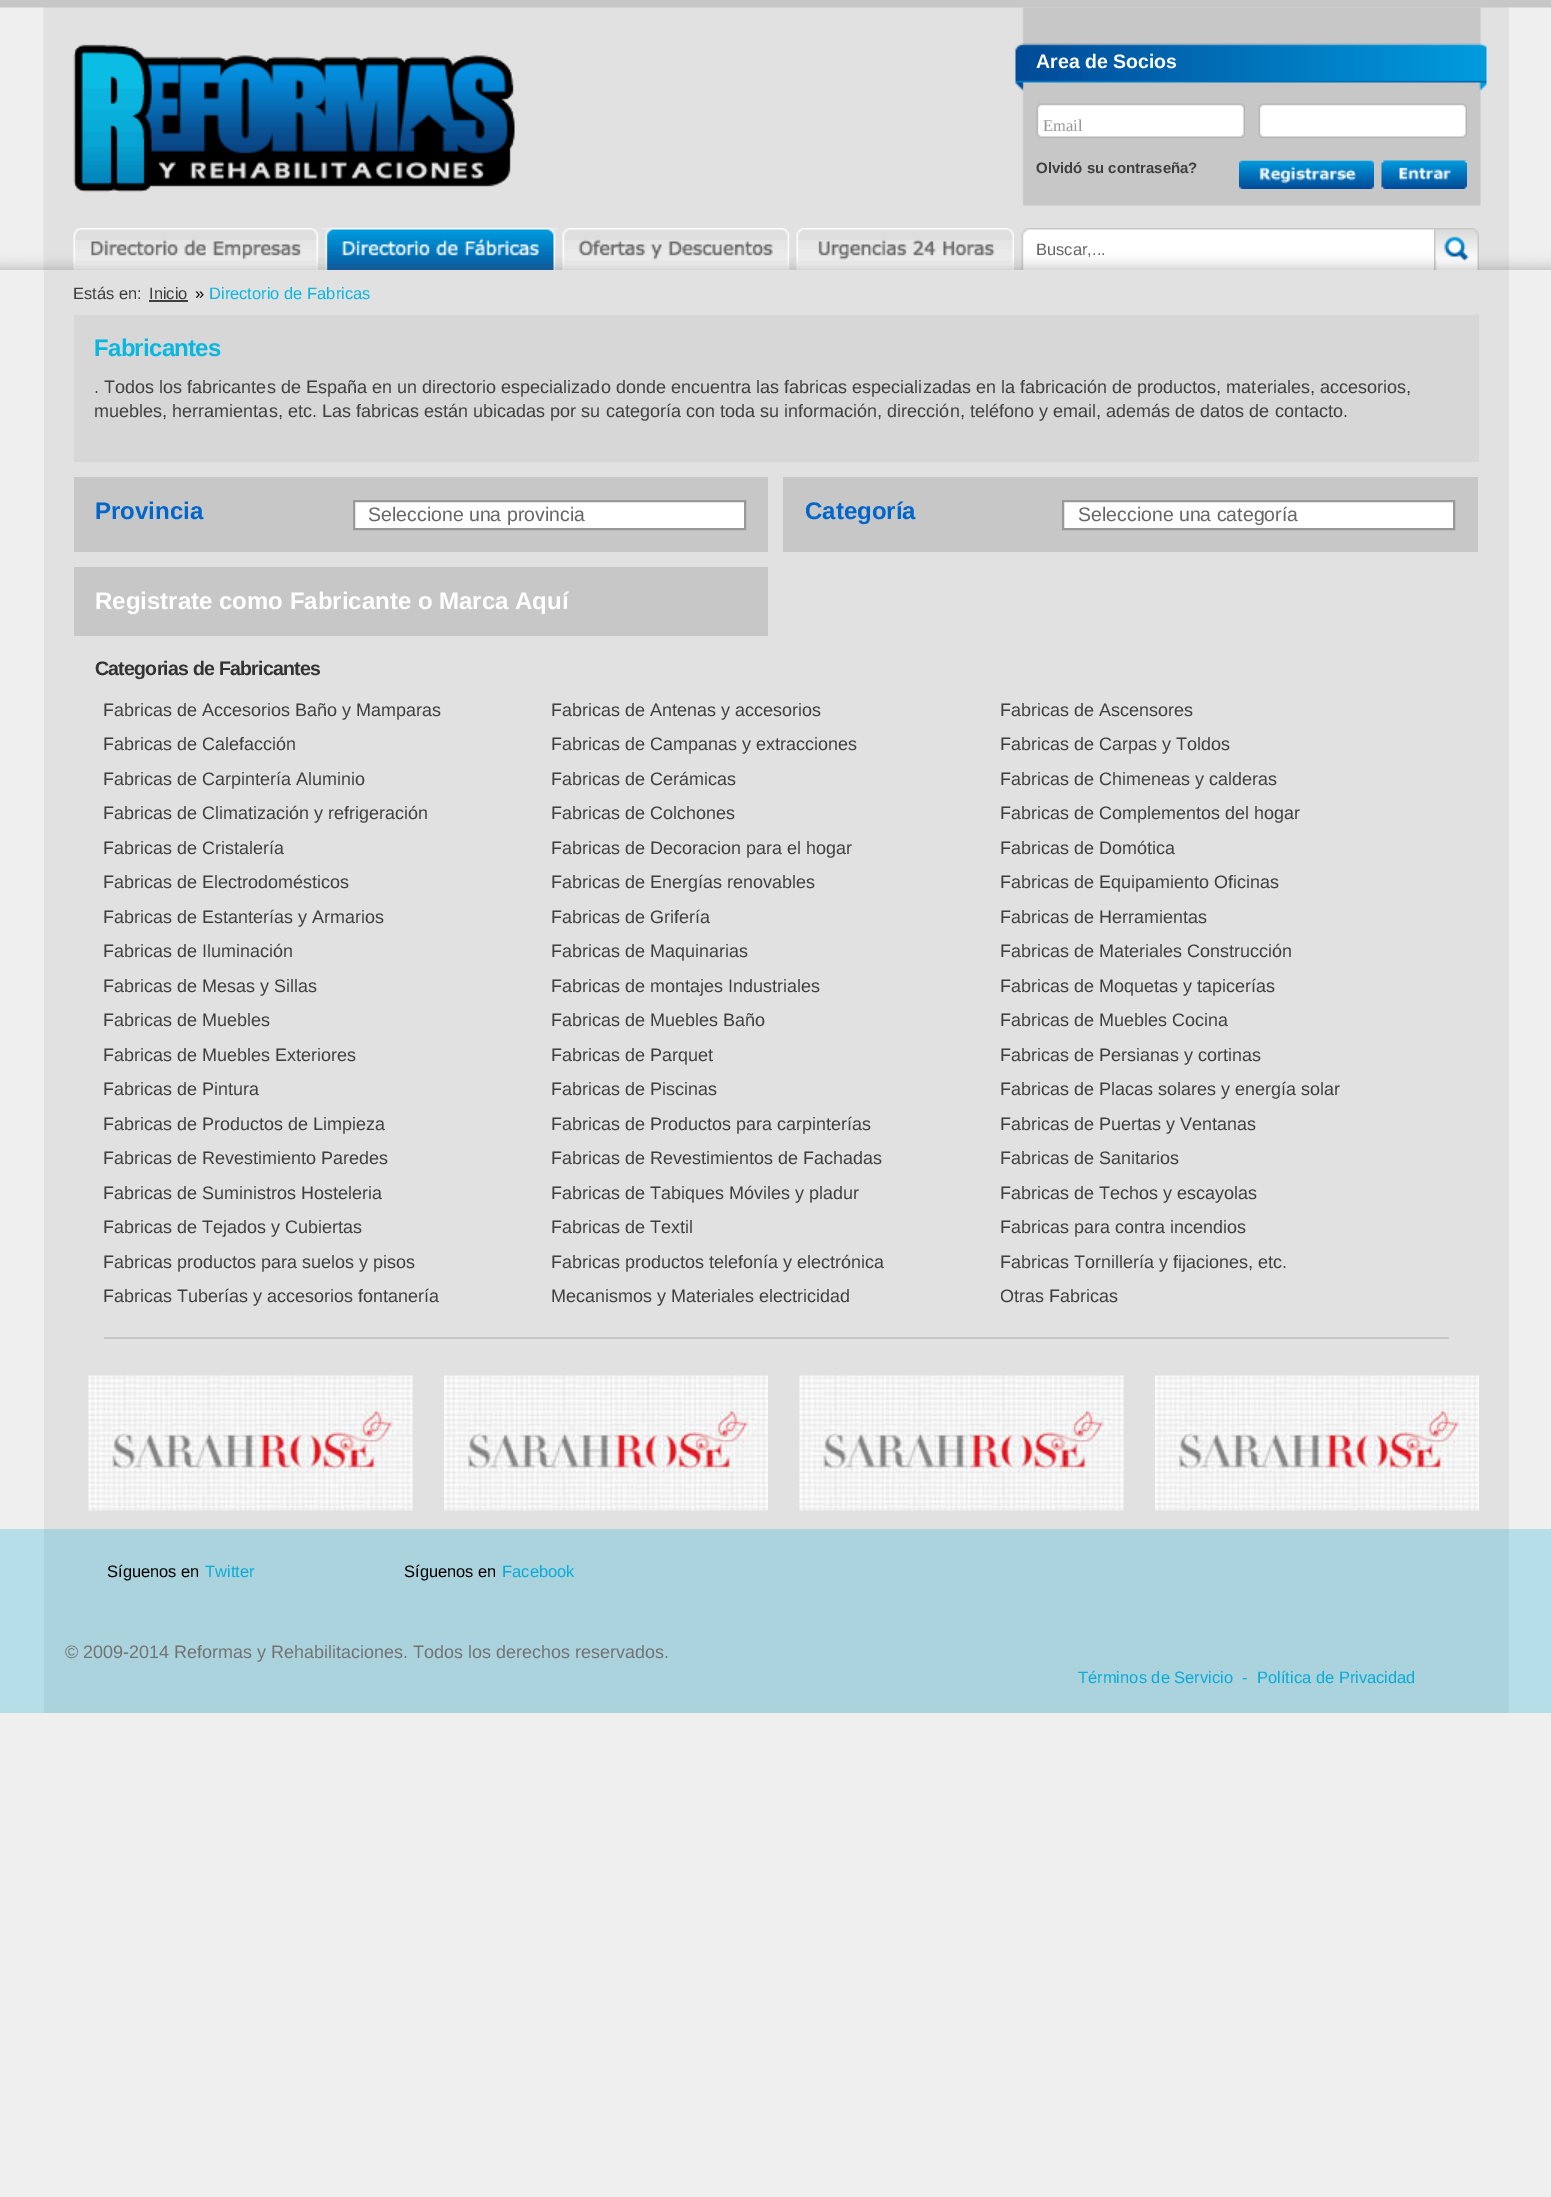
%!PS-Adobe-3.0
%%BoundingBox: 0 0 1551 2197
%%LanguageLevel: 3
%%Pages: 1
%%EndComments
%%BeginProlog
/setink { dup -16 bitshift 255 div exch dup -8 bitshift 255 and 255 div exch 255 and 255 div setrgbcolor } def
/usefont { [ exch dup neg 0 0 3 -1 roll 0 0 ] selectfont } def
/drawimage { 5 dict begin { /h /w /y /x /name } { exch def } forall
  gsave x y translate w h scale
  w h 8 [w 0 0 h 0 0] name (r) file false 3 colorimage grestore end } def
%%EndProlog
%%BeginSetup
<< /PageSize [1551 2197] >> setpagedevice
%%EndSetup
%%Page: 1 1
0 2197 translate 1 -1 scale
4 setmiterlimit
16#EFEFEF setink
0 0 1551 2197 rectfill
(img1.raw) 0 0 1551 270 drawimage
(img2.raw) 43 7 1466 263 drawimage
(img3.raw) 73 44 442 149 drawimage
(img4.raw) 1015 7 472 199 drawimage
/LiberationSans-Bold 19.5 usefont
16#FFFFFF setink
1036 68 moveto (Area de Socios) show
(img5.raw) 1036 103 209 35 drawimage
/LiberationSerif-Regular 16.5 usefont
16#999999 setink
1043 131 moveto (Email) show
(img6.raw) 1258 103 209 35 drawimage
/LiberationSans-Bold 15 usefont
16#3F3F3F setink
1036 173 moveto (Olvidó su contraseña?) show
(img7.raw) 1239 160 135 29 drawimage
16#EFEFEF setink
1382 161 85 28 rectfill
(img8.raw) 1381 160 86 29 drawimage
16#E1E1E1 setink
74 256 940 14 rectfill
(img9.raw) 73 228 248 42 drawimage
(img10.raw) 321 228 237 42 drawimage
(img11.raw) 558 228 234 42 drawimage
(img12.raw) 792 228 222 42 drawimage
(img13.raw) 1021 228 413 42 drawimage
/LiberationSans-Regular 16.5 usefont
16#666666 setink
1036 255 moveto (Buscar,...) show
(img14.raw) 1434 228 45 42 drawimage
16#E1E1E1 setink
44 270 1465 1259 rectfill
16#3F3F3F setink
73 299 moveto (Estás en:) show
149 299 moveto (Inicio) show
149 300 39 2 rectfill
16#000000 setink
195 299 moveto (») show
16#0AB7E0 setink
209 299 moveto (Directorio de Fabricas) show
16#D7D7D7 setink
74 315 1405 147 rectfill
/LiberationSans-Bold 24 usefont
16#0AB7E0 setink
94 356 moveto -0.75 0 (Fabricantes) ashow
/LiberationSans-Regular 18.05 usefont
16#3F3F3F setink
94 393 moveto (. Todos los fabricantes de España en un directorio especializado donde encuentra las fabricas especializadas en la fabricación de productos, materiales, accesorios,) show
94 417 moveto (muebles, herramientas, etc. Las fabricas están ubicadas por su categoría con toda su información, dirección, teléfono y email, además de datos de contacto.) show
16#C7C7C7 setink
74 477 694 75 rectfill
/LiberationSans-Bold 24 usefont
16#0066CC setink
95 519 moveto (Provincia) show
16#FFFFFF setink
354 501 moveto 745 501 lineto 745 529 lineto 354 529 lineto closepath gsave fill grestore
16#999999 setink
2 setlinewidth
stroke
/LiberationSans-Regular 19.5 usefont
16#666666 setink
368 521 moveto (Seleccione una provincia) show
16#C7C7C7 setink
783 477 695 75 rectfill
/LiberationSans-Bold 24 usefont
16#0066CC setink
805 519 moveto (Categoría) show
16#FFFFFF setink
1063 501 moveto 1454 501 lineto 1454 529 lineto 1063 529 lineto closepath gsave fill grestore
16#999999 setink
stroke
/LiberationSans-Regular 19.5 usefont
16#666666 setink
1078 521 moveto (Seleccione una categoría) show
16#C7C7C7 setink
74 567 694 69 rectfill
/LiberationSans-Bold 24 usefont
16#FFFFFF setink
95 609 moveto (Registrate como Fabricante o Marca Aquí) show
/LiberationSans-Bold 19.5 usefont
16#333333 setink
95 675 moveto -0.75 0 (Categorias de Fabricantes) ashow
16#C7C7C7 setink
104 1337 1345 2 rectfill
/LiberationSans-Regular 18 usefont
16#3F3F3F setink
[
    [(Fabricas de Accesorios Baño y Mamparas) 103 716]
    [(Fabricas de Antenas y accesorios) 551 716]
    [(Fabricas de Ascensores) 1000 716]
    [(Fabricas de Calefacción) 103 750]
    [(Fabricas de Campanas y extracciones) 551 750]
    [(Fabricas de Carpas y Toldos) 1000 750]
    [(Fabricas de Carpintería Aluminio) 103 785]
    [(Fabricas de Cerámicas) 551 785]
    [(Fabricas de Chimeneas y calderas) 1000 785]
    [(Fabricas de Climatización y refrigeración) 103 819]
    [(Fabricas de Colchones) 551 819]
    [(Fabricas de Complementos del hogar) 1000 819]
    [(Fabricas de Cristalería) 103 854]
    [(Fabricas de Decoracion para el hogar) 551 854]
    [(Fabricas de Domótica) 1000 854]
    [(Fabricas de Electrodomésticos) 103 888]
    [(Fabricas de Energías renovables) 551 888]
    [(Fabricas de Equipamiento Oficinas) 1000 888]
    [(Fabricas de Estanterías y Armarios) 103 923]
    [(Fabricas de Grifería) 551 923]
    [(Fabricas de Herramientas) 1000 923]
    [(Fabricas de Iluminación) 103 957]
    [(Fabricas de Maquinarias) 551 957]
    [(Fabricas de Materiales Construcción) 1000 957]
    [(Fabricas de Mesas y Sillas) 103 992]
    [(Fabricas de montajes Industriales) 551 992]
    [(Fabricas de Moquetas y tapicerías) 1000 992]
    [(Fabricas de Muebles) 103 1026]
    [(Fabricas de Muebles Baño) 551 1026]
    [(Fabricas de Muebles Cocina) 1000 1026]
    [(Fabricas de Muebles Exteriores) 103 1061]
    [(Fabricas de Parquet) 551 1061]
    [(Fabricas de Persianas y cortinas) 1000 1061]
    [(Fabricas de Pintura) 103 1095]
    [(Fabricas de Piscinas) 551 1095]
    [(Fabricas de Placas solares y energía solar) 1000 1095]
    [(Fabricas de Productos de Limpieza) 103 1130]
    [(Fabricas de Productos para carpinterías) 551 1130]
    [(Fabricas de Puertas y Ventanas) 1000 1130]
    [(Fabricas de Revestimiento Paredes) 103 1164]
    [(Fabricas de Revestimientos de Fachadas) 551 1164]
    [(Fabricas de Sanitarios) 1000 1164]
    [(Fabricas de Suministros Hosteleria) 103 1199]
    [(Fabricas de Tabiques Móviles y pladur) 551 1199]
    [(Fabricas de Techos y escayolas) 1000 1199]
    [(Fabricas de Tejados y Cubiertas) 103 1233]
    [(Fabricas de Textil) 551 1233]
    [(Fabricas para contra incendios) 1000 1233]
    [(Fabricas productos para suelos y pisos) 103 1268]
    [(Fabricas productos telefonía y electrónica) 551 1268]
    [(Fabricas Tornillería y fijaciones, etc.) 1000 1268]
    [(Fabricas Tuberías y accesorios fontanería) 103 1302]
    [(Mecanismos y Materiales electricidad) 551 1302]
] { aload pop moveto show } forall
gsave
1001 1287 445 20 rectclip
1000 1302 moveto (Otras Fabricas) show
grestore
(img15.raw) 88 1375 325 136 drawimage
(img16.raw) 444 1375 324 136 drawimage
(img15.raw) 799 1375 325 136 drawimage
(img17.raw) 1155 1375 324 136 drawimage
16#B5DEE9 setink
0 1529 1551 184 rectfill
16#ABD3DE setink
44 1529 1465 184 rectfill
/LiberationSans-Regular 16.5 usefont
16#000000 setink
107 1577 moveto (Síguenos en) show
16#09ABD7 setink
205 1577 moveto (Twitter) show
16#000000 setink
404 1577 moveto (Síguenos en) show
16#09ABD7 setink
502 1577 moveto (Facebook) show
/LiberationSans-Regular 18 usefont
16#727272 setink
65 1658 moveto (© 2009-2014 Reformas y Rehabilitaciones. Todos los derechos reservados.) show
/LiberationSans-Regular 16.5 usefont
16#09ABD7 setink
[
    [(Términos de Servicio) 1078 1683]
    [(-) 1242 1683]
    [(Política de Privacidad) 1257 1683]
] { aload pop moveto show } forall
showpage
%%EOF
